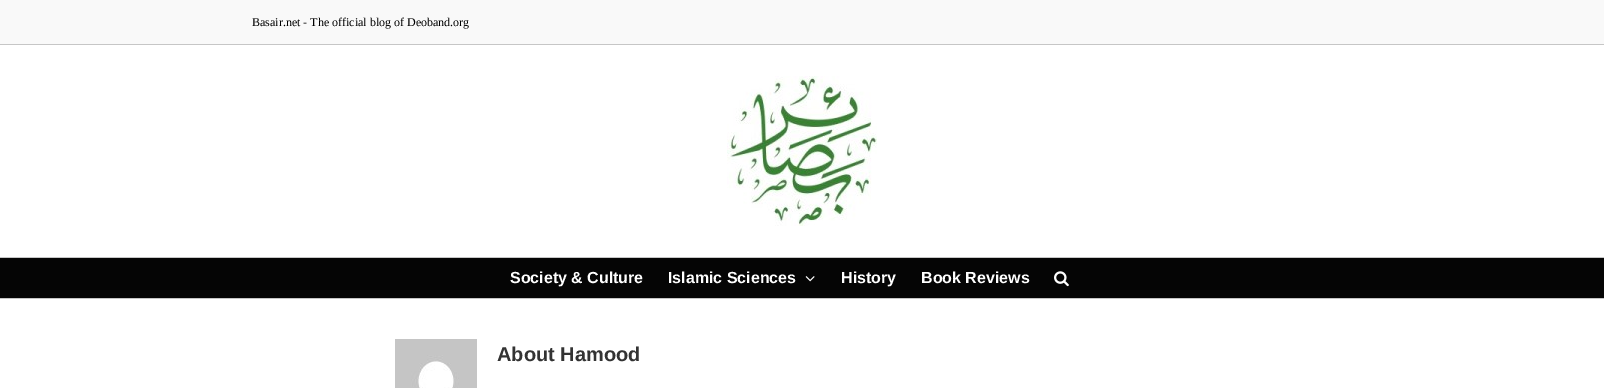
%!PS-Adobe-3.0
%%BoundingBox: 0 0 1604 388
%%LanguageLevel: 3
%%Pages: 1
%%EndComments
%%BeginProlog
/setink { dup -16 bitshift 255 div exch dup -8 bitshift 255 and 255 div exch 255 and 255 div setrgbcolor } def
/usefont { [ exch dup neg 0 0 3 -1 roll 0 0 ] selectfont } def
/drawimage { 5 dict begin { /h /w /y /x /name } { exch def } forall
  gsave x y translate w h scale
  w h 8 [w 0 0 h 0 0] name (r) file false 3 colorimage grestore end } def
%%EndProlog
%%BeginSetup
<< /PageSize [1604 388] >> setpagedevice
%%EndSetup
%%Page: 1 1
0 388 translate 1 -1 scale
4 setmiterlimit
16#FFFFFF setink
0 0 1604 388 rectfill
16#F9F9F9 setink
0 0 1604 44 rectfill
16#C6C6C6 setink
0 44 1604 1 rectfill
/LiberationSerif-Regular 12 usefont
16#000000 setink
252 26 moveto (Basair.net - The official blog of Deoband.org) show
16#C6C6C6 setink
0 257 1604 1 rectfill
(img1.raw) 727 76 150 150 drawimage
16#050505 setink
0 258 1604 40 rectfill
16#C6C6C6 setink
0 298 1604 1 rectfill
/Arimo-Bold 16 usefont
16#FFFFFF setink
510 283 moveto (Society & Culture) show
668 283 moveto (Islamic Sciences) show
(img2.raw) 805 276 10 6 drawimage
841 283 moveto (History) show
921 283 moveto (Book Reviews) show
(img3.raw) 1054 271 15 16 drawimage
(img4.raw) 395 339 82 49 drawimage
/LiberationSans-Bold 20 usefont
16#333333 setink
497 361 moveto (About Hamood) show
showpage
%%EOF
